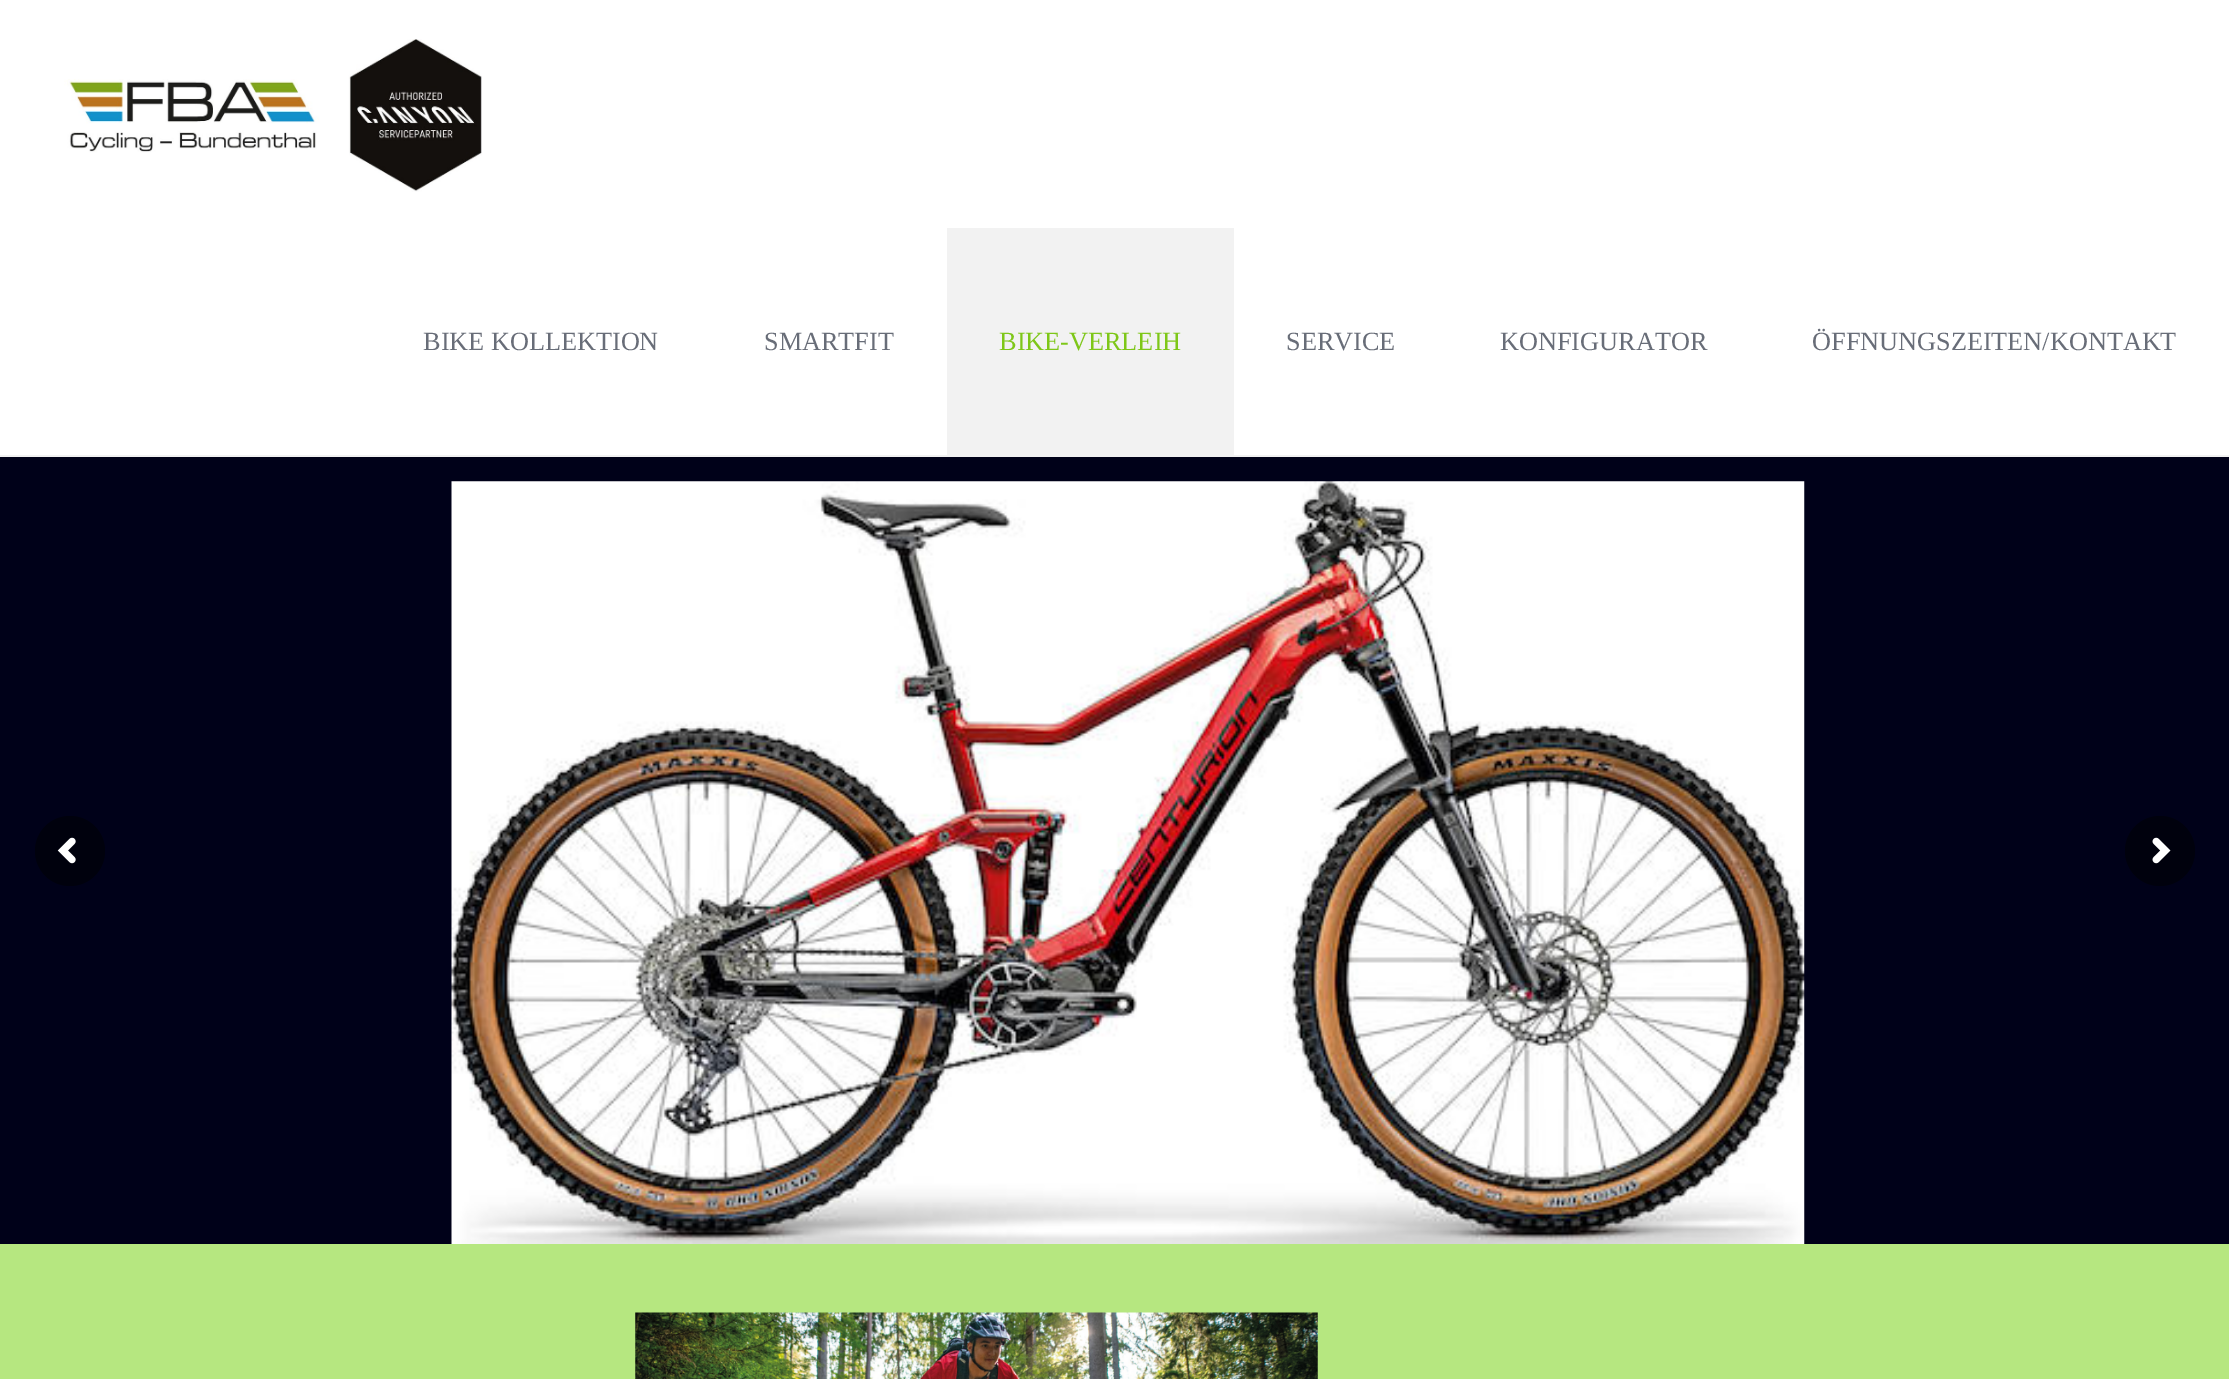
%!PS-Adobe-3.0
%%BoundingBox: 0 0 2229 1379
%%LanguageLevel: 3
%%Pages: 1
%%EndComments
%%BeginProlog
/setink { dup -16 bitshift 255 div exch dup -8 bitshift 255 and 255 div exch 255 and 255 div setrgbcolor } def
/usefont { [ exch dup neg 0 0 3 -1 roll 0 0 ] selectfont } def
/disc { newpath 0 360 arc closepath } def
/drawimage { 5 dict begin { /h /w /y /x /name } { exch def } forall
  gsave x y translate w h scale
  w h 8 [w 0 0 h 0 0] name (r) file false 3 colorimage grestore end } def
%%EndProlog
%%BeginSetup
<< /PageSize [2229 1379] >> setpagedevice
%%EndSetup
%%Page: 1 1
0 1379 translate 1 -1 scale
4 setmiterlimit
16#000119 setink
0 0 2229 1379 rectfill
16#FFFFFF setink
0 0 2229 455 rectfill
16#F2F2F2 setink
0 455 2229 2 rectfill
(img1.raw) 64 39 418 153 drawimage
/LiberationSerif-Regular 26.25 usefont
16#686D78 setink
423 350 moveto (BIKE KOLLEKTION) show
764 350 moveto (SMARTFIT) show
16#F2F2F2 setink
947 228 287 227 rectfill
16#7EC718 setink
999 350 moveto (BIKE-VERLEIH) show
16#686D78 setink
[
    [(SERVICE) 1286 350]
    [(KONFIGURATOR) 1500 350]
    [(ÖFFNUNGSZEITEN/KONTAKT) 1812 350]
] { aload pop moveto show } forall
16#00010D setink
70 851 35 disc fill
(img2.raw) 57 837 19 27 drawimage
(img3.raw) 451 481 1354 763 drawimage
2160 851 35 disc fill
(img4.raw) 2152 837 19 27 drawimage
16#B6E780 setink
0 1244 2229 135 rectfill
(img5.raw) 635 1312 683 67 drawimage
showpage
%%EOF
